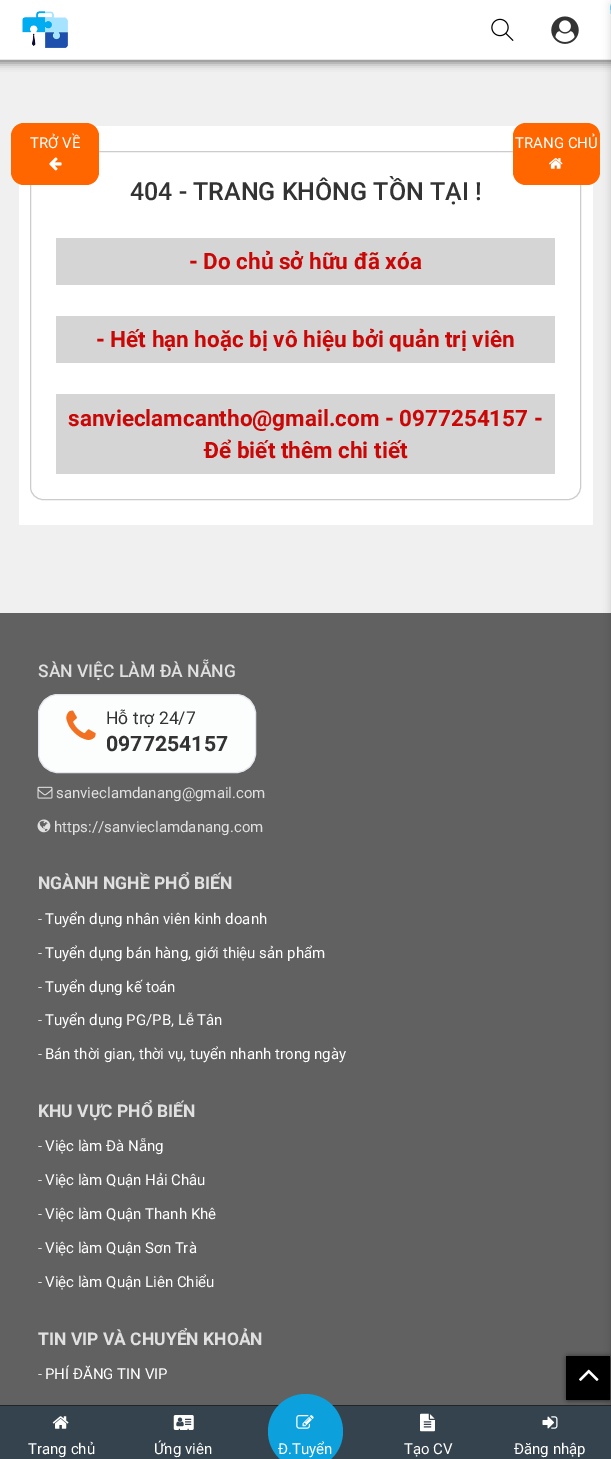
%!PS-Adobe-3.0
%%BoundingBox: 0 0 611 1459
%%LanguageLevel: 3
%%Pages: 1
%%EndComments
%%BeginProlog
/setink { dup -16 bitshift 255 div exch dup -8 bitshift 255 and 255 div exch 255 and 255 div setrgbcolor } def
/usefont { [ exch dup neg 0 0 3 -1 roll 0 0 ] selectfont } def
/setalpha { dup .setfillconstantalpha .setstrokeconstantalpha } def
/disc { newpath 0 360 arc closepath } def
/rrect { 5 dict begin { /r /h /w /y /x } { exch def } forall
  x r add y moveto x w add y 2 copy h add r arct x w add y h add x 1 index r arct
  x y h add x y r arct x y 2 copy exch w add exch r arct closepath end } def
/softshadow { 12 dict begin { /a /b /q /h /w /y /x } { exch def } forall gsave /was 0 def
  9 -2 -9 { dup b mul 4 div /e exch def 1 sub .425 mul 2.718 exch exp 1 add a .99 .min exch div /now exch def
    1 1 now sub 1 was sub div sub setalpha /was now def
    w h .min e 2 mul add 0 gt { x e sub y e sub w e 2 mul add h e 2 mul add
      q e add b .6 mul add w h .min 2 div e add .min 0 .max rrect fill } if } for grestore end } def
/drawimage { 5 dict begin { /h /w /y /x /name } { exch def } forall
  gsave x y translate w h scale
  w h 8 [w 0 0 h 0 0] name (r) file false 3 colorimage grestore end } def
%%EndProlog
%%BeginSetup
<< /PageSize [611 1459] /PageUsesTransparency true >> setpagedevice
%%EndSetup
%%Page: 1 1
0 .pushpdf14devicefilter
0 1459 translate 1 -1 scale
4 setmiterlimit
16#F0F0F0 setink
0 0 611 1459 rectfill
16#000000 setink
-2 -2 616 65 0 4 0.46 softshadow
16#FFFFFF setink
0 0 611 59 rectfill
16#E7E7E7 setink
0 59 611 1 rectfill
(img1.raw) 22 11 46 37 drawimage
(img2.raw) 491 18 23 23 drawimage
(img3.raw) 551 16 28 28 drawimage
16#FFFFFF setink
19 126 574 399 rectfill
16#CCCCCC setink
30.5 151.5 550 348 12.5 rrect stroke
16#FF6600 setink
11 123 88 62 13 rrect fill
/Roboto-Regular 15 usefont
16#FFFFFF setink
30 148 moveto (TRỞ VỀ) show
(img4.raw) 49 157 13 14 drawimage
16#FF6600 setink
513 123 87 62 13 rrect fill
16#FFFFFF setink
515 148 moveto (TRANG CHỦ) show
(img5.raw) 549 158 14 11 drawimage
/Roboto-Medium 25 usefont
16#333333 setink
130 200 moveto (404 - TRANG KHÔNG TỒN TẠI !) show
16#D5D5D5 setink
56 238 499 47 rectfill
/Roboto-Bold 22.5 usefont
16#C90707 setink
189 269 moveto (- Do chủ sở hữu đã xóa) show
16#D5D5D5 setink
56 316 499 47 rectfill
16#C90707 setink
96 347 moveto (- Hết hạn hoặc bị vô hiệu bởi quản trị viên) show
16#D5D5D5 setink
56 394 499 80 rectfill
16#C90707 setink
68 426 moveto (sanvieclamcantho@gmail.com - 0977254157 -) show
204 458 moveto (Để biết thêm chi tiết) show
16#616161 setink
0 613 611 792 rectfill
16#000000 setink
568 1358 41 41 0 3 1 softshadow
566 1356 44 44 rectfill
(img9.raw) 579 1369 20 12 drawimage
611 1 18 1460 4 4.5 0.15 softshadow
16#01ACF1 setink
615 0 moveto 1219 0 lineto 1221 0 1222 2 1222 4 curveto 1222 14 lineto 611 14 lineto 611 11 609 0 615 0 curveto closepath fill
/Roboto-Medium 17.5 usefont
16#E0E0E0 setink
38 677 moveto (SÀN VIỆC LÀM ĐÀ NẴNG) show
16#FCFDFD setink
38.5 694.5 217 78 19.5 rrect gsave fill grestore
16#E5E6ED setink
stroke
(img6.raw) 66 710 30 30 drawimage
/Roboto-Regular 17.5 usefont
16#333333 setink
106 724 moveto (Hỗ trợ 24/7) show
/Roboto-Bold 21.25 usefont
106 751 moveto (0977254157) show
(img7.raw) 37 786 16 13 drawimage
/Roboto-Regular 15 usefont
16#E0E0E0 setink
56 798 moveto (sanvieclamdanang@gmail.com) show
(img8.raw) 37 819 14 14 drawimage
54 832 moveto (https://sanvieclamdanang.com) show
/Roboto-Bold 17.5 usefont
38 889 moveto (NGÀNH NGHỀ PHỔ BIẾN) show
/Roboto-Regular 15 usefont
38 924 moveto (-) show
16#FFFFFF setink
45 924 moveto (Tuyển dụng nhân viên kinh doanh) show
16#E0E0E0 setink
38 958 moveto (-) show
16#FFFFFF setink
45 958 moveto (Tuyển dụng bán hàng, giới thiệu sản phẩm) show
16#E0E0E0 setink
38 992 moveto (-) show
16#FFFFFF setink
45 992 moveto (Tuyển dụng kế toán) show
16#E0E0E0 setink
38 1025 moveto (-) show
16#FFFFFF setink
45 1025 moveto (Tuyển dụng PG/PB, Lễ Tân) show
16#E0E0E0 setink
38 1059 moveto (-) show
16#FFFFFF setink
45 1059 moveto (Bán thời gian, thời vụ, tuyển nhanh trong ngày) show
/Roboto-Bold 17.5 usefont
16#E0E0E0 setink
38 1117 moveto (KHU VỰC PHỔ BIẾN) show
/Roboto-Regular 15 usefont
38 1151 moveto (-) show
16#FFFFFF setink
45 1151 moveto (Việc làm Đà Nẵng) show
16#E0E0E0 setink
38 1185 moveto (-) show
16#FFFFFF setink
45 1185 moveto (Việc làm Quận Hải Châu) show
16#E0E0E0 setink
38 1219 moveto (-) show
16#FFFFFF setink
45 1219 moveto (Việc làm Quận Thanh Khê) show
16#E0E0E0 setink
38 1253 moveto (-) show
16#FFFFFF setink
45 1253 moveto (Việc làm Quận Sơn Trà) show
16#E0E0E0 setink
38 1287 moveto (-) show
16#FFFFFF setink
45 1287 moveto (Việc làm Quận Liên Chiểu) show
/Roboto-Bold 17.5 usefont
16#E0E0E0 setink
38 1345 moveto (TIN VIP VÀ CHUYỂN KHOẢN) show
/Roboto-Regular 15 usefont
38 1379 moveto (-) show
16#FFFFFF setink
45 1379 moveto (PHÍ ĐĂNG TIN VIP) show
16#35434E setink
0 1406 611 53 rectfill
16#222426 setink
0 1405 611 1 rectfill
(img10.raw) 52 1416 17 13 drawimage
16#FFFFFF setink
28 1454 moveto (Trang chủ) show
(img11.raw) 173 1415 21 15 drawimage
154 1454 moveto (Ứng viên) show
16#0CA1DD setink
305.5 1431.5 37.5 disc fill
(img12.raw) 296 1415 18 14 drawimage
16#FFFFFF setink
278 1454 moveto (Đ.Tuyển) show
(img13.raw) 420 1413 15 19 drawimage
404 1454 moveto (Tạo CV) show
(img14.raw) 542 1416 16 13 drawimage
514 1454 moveto (Đăng nhập) show
.poppdf14devicefilter showpage
%%EOF
